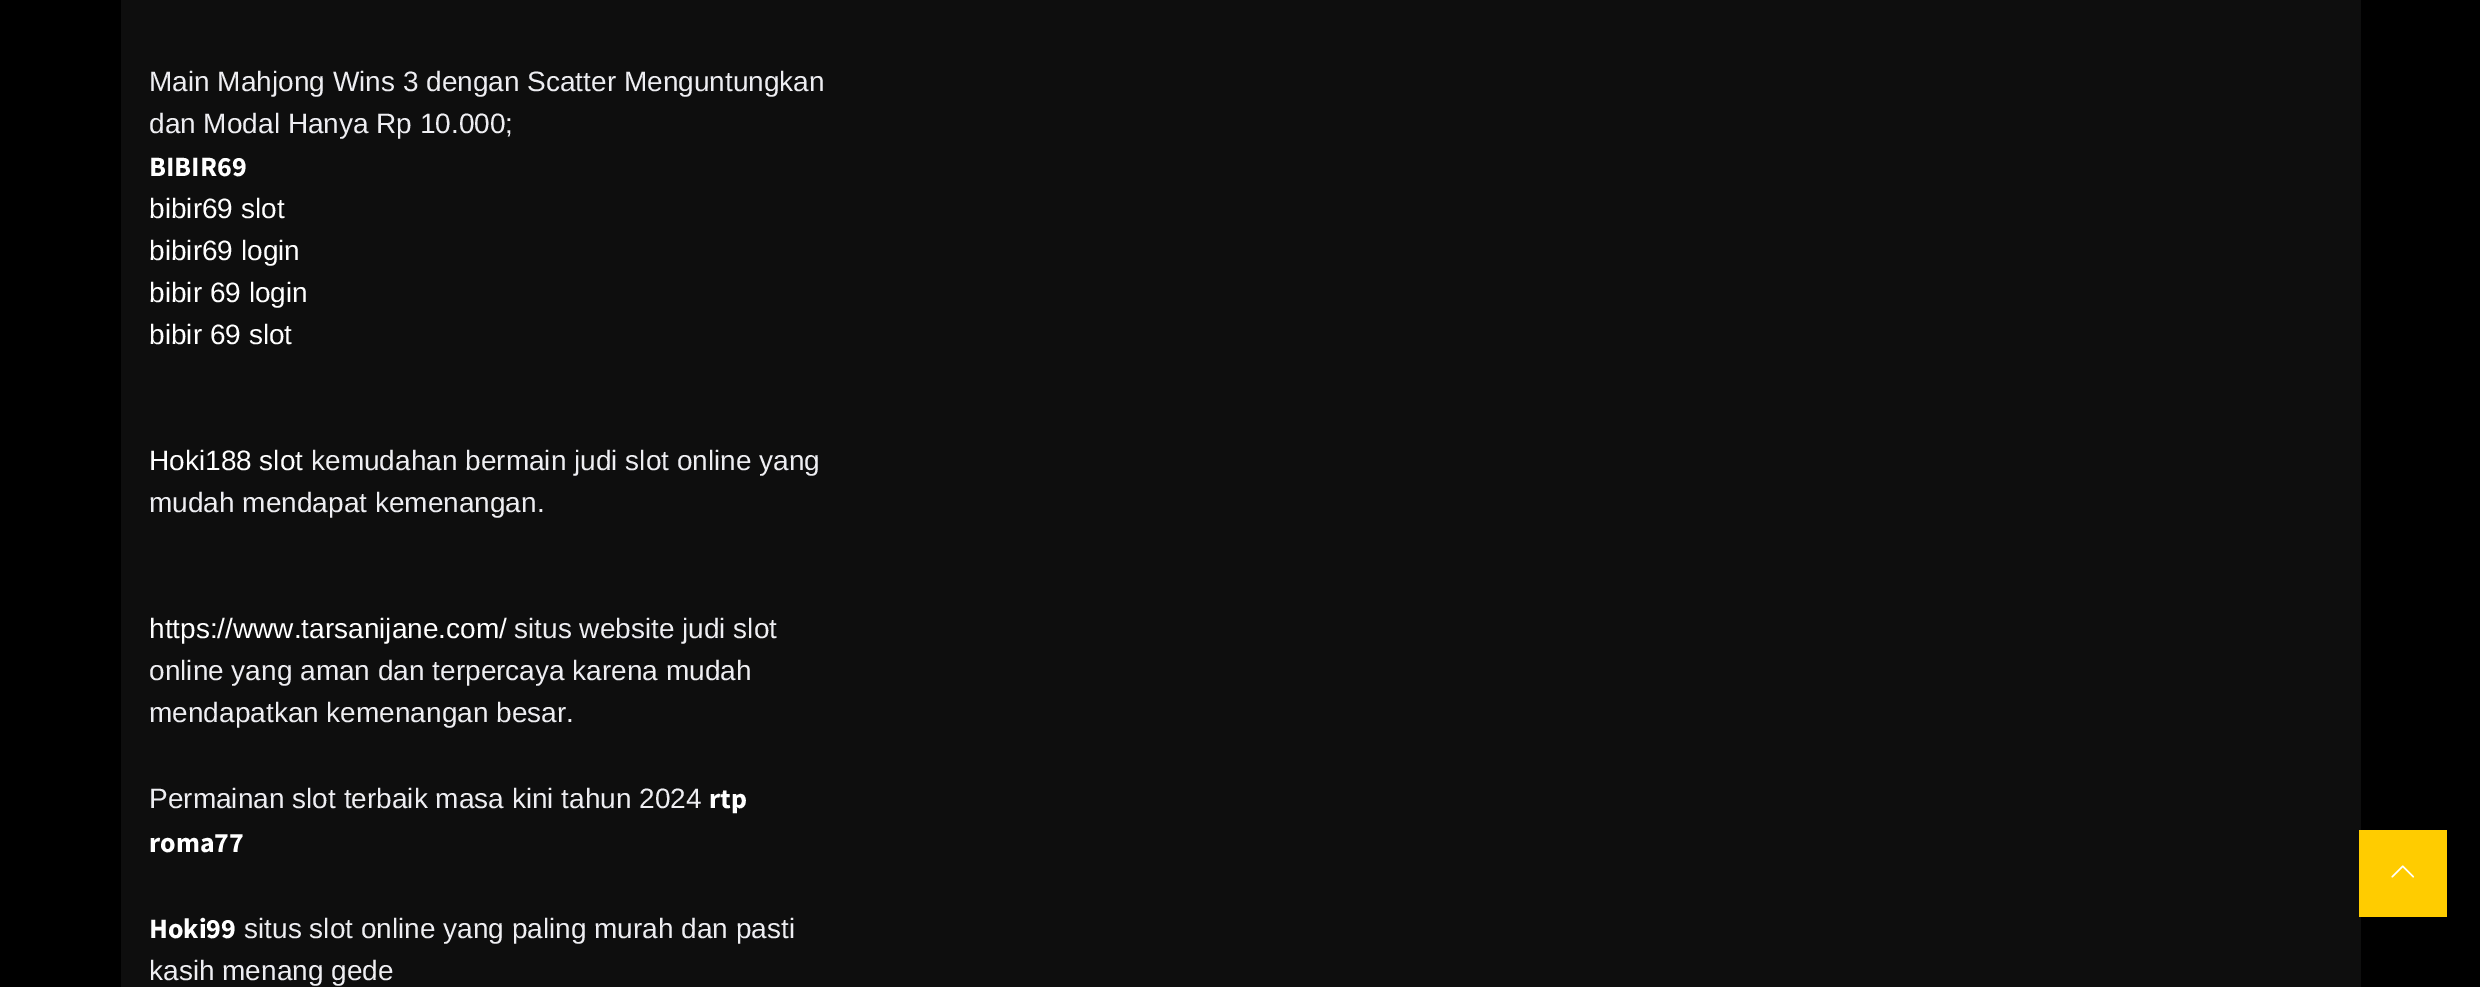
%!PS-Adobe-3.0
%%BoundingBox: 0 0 2480 987
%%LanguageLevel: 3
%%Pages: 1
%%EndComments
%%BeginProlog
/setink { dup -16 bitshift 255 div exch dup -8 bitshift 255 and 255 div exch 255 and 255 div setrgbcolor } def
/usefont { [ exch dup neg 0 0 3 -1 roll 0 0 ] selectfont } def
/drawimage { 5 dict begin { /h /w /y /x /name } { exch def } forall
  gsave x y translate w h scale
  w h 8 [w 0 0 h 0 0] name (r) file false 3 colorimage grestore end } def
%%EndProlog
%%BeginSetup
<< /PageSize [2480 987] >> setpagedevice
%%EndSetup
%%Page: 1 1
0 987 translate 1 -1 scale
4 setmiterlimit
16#000000 setink
0 0 2480 987 rectfill
16#0E0E0E setink
121 0 2240 987 rectfill
/LiberationSans-Regular 28 usefont
16#EEEEF2 setink
149 91 moveto (Main Mahjong Wins 3 dengan Scatter Menguntungkan) show
149 133 moveto (dan Modal Hanya Rp 10.000;) show
/SourceSansPro-Bold 28 usefont
16#FFFFFF setink
149 176 moveto (BIBIR69) show
/LiberationSans-Regular 28 usefont
[
    [(bibir69 slot) 149 218]
    [(bibir69 login) 149 260]
    [(bibir 69 login) 149 302]
    [(bibir 69 slot) 149 344]
    [(Hoki188 slot) 149 470]
] { aload pop moveto show } forall
16#EEEEF2 setink
311 470 moveto (kemudahan bermain judi slot online yang) show
149 512 moveto (mudah mendapat kemenangan.) show
16#FFFFFF setink
149 638 moveto (https://www.tarsanijane.com/) show
16#EEEEF2 setink
[
    [(situs website judi slot) 514 638]
    [(online yang aman dan terpercaya karena mudah) 149 680]
    [(mendapatkan kemenangan besar.) 149 722]
    [(Permainan slot terbaik masa kini tahun 2024) 149 808]
] { aload pop moveto show } forall
/SourceSansPro-Bold 28 usefont
16#FFFFFF setink
[
    [(rtp) 709 808]
    [(roma77) 149 852]
    [(Hoki99) 149 938]
] { aload pop moveto show } forall
/LiberationSans-Regular 28 usefont
16#EEEEF2 setink
244 938 moveto (situs slot online yang paling murah dan pasti) show
149 980 moveto (kasih menang gede) show
16#FFCC00 setink
2359 830 88 87 rectfill
(img1.raw) 2391 865 24 13 drawimage
showpage
%%EOF
